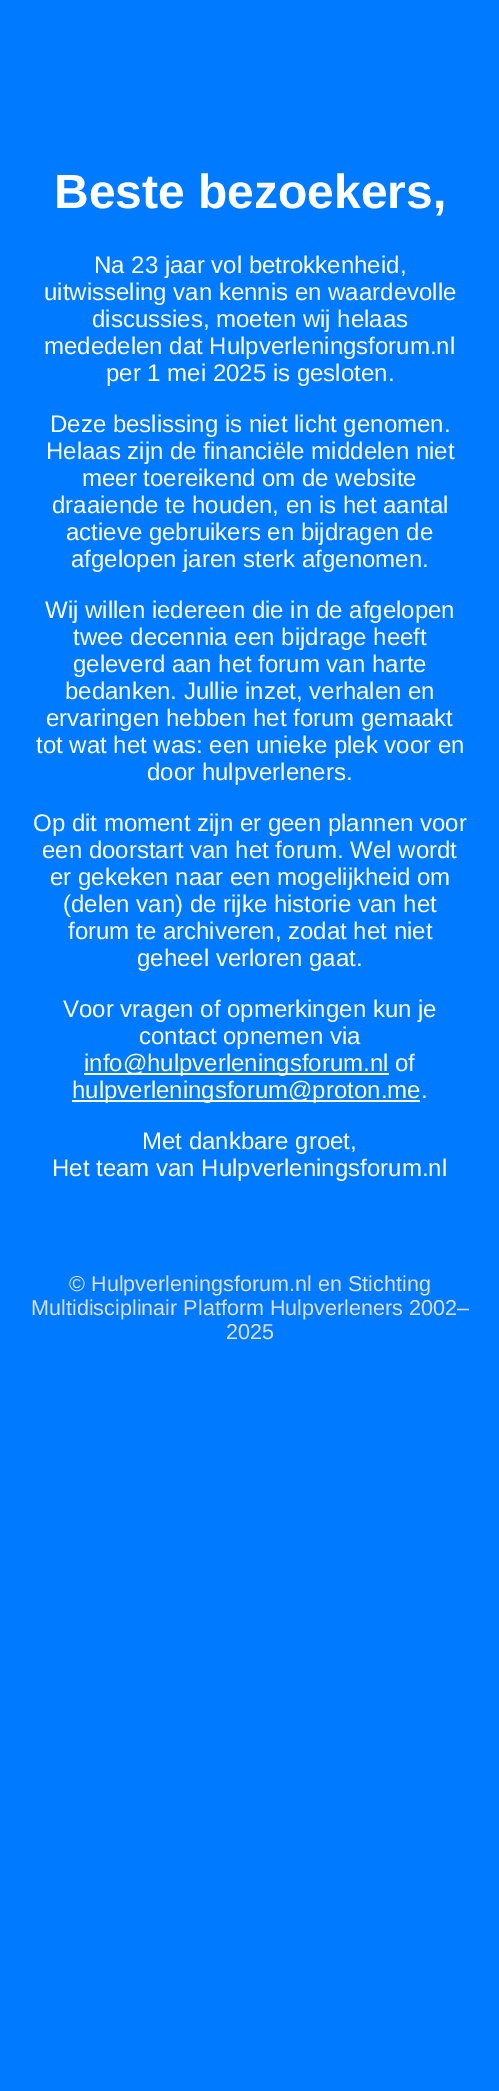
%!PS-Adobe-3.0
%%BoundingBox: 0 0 499 2091
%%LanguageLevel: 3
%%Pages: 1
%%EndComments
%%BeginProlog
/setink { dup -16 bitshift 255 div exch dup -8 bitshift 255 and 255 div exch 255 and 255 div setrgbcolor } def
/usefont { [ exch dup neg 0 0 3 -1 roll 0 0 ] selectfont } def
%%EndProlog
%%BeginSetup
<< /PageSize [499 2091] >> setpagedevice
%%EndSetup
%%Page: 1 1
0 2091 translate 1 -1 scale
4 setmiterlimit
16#007BFF setink
0 0 499 2091 rectfill
/LiberationSans-Bold 48 usefont
16#FFFFFF setink
54 208 moveto (Beste bezoekers,) show
/LiberationSans-Regular 24 usefont
[
    [(Na 23 jaar vol betrokkenheid,) 94 273]
    [(uitwisseling van kennis en waardevolle) 44 300]
    [(discussies, moeten wij helaas) 92 327]
    [(mededelen dat Hulpverleningsforum.nl) 44 354]
    [(per 1 mei 2025 is gesloten.) 106 381]
    [(Deze beslissing is niet licht genomen.) 50 432]
    [(Helaas zijn de financiële middelen niet) 46 459]
    [(meer toereikend om de website) 82 486]
    [(draaiende te houden, en is het aantal) 52 513]
    [(actieve gebruikers en bijdragen de) 66 540]
    [(afgelopen jaren sterk afgenomen.) 71 567]
    [(Wij willen iedereen die in de afgelopen) 45 618]
    [(twee decennia een bijdrage heeft) 73 645]
    [(geleverd aan het forum van harte) 73 672]
    [(bedanken. Jullie inzet, verhalen en) 65 699]
    [(ervaringen hebben het forum gemaakt) 46 726]
    [(tot wat het was: een unieke plek voor en) 36 753]
    [(door hulpverleners.) 147 780]
    [(Op dit moment zijn er geen plannen voor) 33 831]
    [(een doorstart van het forum. Wel wordt) 42 858]
    [(er gekeken naar een mogelijkheid om) 50 885]
    [(\(delen van\) de rijke historie van het) 63 912]
    [(forum te archiveren, zodat het niet) 68 939]
    [(geheel verloren gaat.) 137 966]
    [(Voor vragen of opmerkingen kun je) 63 1017]
    [(contact opnemen via) 139 1044]
] { aload pop moveto show } forall
16#FFFFCC setink
84 1073 305 2 rectfill
84 1071 moveto (info@hulpverleningsforum.nl) show
16#FFFFFF setink
395 1071 moveto (of) show
16#FFFFCC setink
72 1100 348 2 rectfill
72 1098 moveto (hulpverleningsforum@proton.me) show
16#FFFFFF setink
[
    [(.) 421 1098]
    [(Met dankbare groet,) 142 1149]
    [(Het team van Hulpverleningsforum.nl) 52 1176]
] { aload pop moveto show } forall
/LiberationSans-Regular 21.6 usefont
16#E0E0E0 setink
[
    [(© Hulpverleningsforum.nl en Stichting) 69 1291]
    [(Multidisciplinair Platform Hulpverleners 2002–) 31 1315]
    [(2025) 226 1339]
] { aload pop moveto show } forall
showpage
%%EOF
